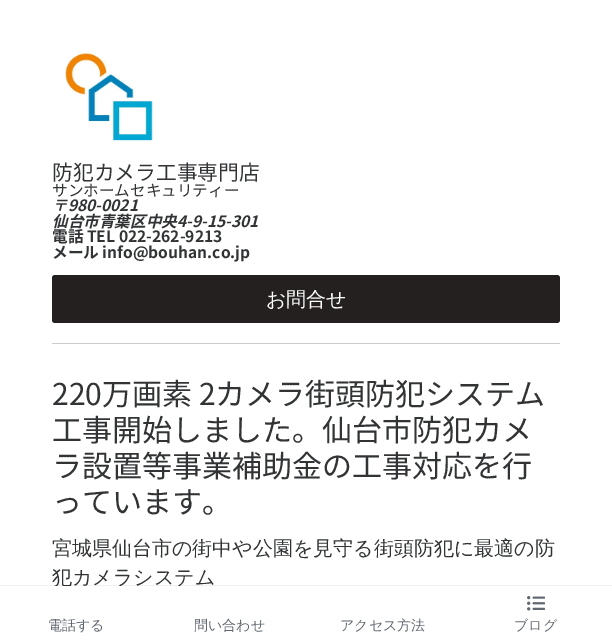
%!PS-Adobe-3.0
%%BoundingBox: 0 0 612 642
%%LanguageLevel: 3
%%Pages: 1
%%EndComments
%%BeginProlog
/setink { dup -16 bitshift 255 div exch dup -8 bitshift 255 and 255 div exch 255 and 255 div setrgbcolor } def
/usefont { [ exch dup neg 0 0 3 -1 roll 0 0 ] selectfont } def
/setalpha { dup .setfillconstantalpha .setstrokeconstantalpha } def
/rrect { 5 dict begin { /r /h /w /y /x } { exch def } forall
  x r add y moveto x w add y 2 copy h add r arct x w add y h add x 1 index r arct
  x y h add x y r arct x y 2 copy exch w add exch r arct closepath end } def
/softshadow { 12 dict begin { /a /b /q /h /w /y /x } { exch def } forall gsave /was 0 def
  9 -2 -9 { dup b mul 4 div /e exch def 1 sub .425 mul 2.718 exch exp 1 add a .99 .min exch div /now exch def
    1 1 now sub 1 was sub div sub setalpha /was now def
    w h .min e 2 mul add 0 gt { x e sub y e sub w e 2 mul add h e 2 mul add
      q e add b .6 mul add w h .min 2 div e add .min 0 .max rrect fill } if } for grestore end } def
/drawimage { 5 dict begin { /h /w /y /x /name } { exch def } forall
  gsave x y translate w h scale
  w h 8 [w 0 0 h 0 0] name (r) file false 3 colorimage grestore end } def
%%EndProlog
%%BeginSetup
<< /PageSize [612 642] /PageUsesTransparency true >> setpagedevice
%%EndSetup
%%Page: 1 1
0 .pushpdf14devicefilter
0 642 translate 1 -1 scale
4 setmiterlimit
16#FFFFFF setink
0 0 612 642 rectfill
16#CCCCCC setink
52 343 508 1 rectfill
(img1.raw) 65 53 88 89 drawimage
/NotoSansJP-Regular 20.75 usefont
16#313335 setink
52 180 moveto (防犯カメラ工事専門店) show
/NotoSansJP-Regular 15.6 usefont
52 196 moveto (サンホームセキュリティー) show
/NotoSansJP-BoldItalic 15.6 usefont
52 211 moveto (〒980-0021) show
52 227 moveto (仙台市青葉区中央4-9-15-301) show
/NotoSansJP-Bold 15.6 usefont
52 242 moveto (電話 TEL 022-262-9213) show
52 258 moveto (メール info@bouhan.co.jp) show
16#242020 setink
52 275 508 48 3 rrect fill
/WenQuanYiZenHei-Medium 20 usefont
16#FFFFFF setink
266 306 moveto (お問合せ) show
/NotoSansJP-Regular 30 usefont
16#313335 setink
[
    [(220万画素 2カメラ街頭防犯システム) 52 405]
    [(工事開始しました。仙台市防犯カメ) 52 441]
    [(ラ設置等事業補助金の工事対応を行) 52 477]
    [(っています。) 52 513]
] { aload pop moveto show } forall
/WenQuanYiZenHei-Medium 20 usefont
52 555 moveto (宮城県仙台市の街中や公園を見守る街頭防犯に最適の防) show
52 584 moveto (犯カメラシステム) show
16#000000 setink
0 586 612 56 0 0.5 0.22 softshadow
16#FFFFFF setink
0 586 612 56 rectfill
/WenQuanYiZenHei-Medium 14 usefont
16#636972 setink
[
    [(電話する) 48 630]
    [(問い合わせ) 194 630]
    [(アクセス方法) 340 630]
] { aload pop moveto show } forall
(img2.raw) 527 596 18 15 drawimage
514 630 moveto (ブログ) show
.poppdf14devicefilter showpage
%%EOF
